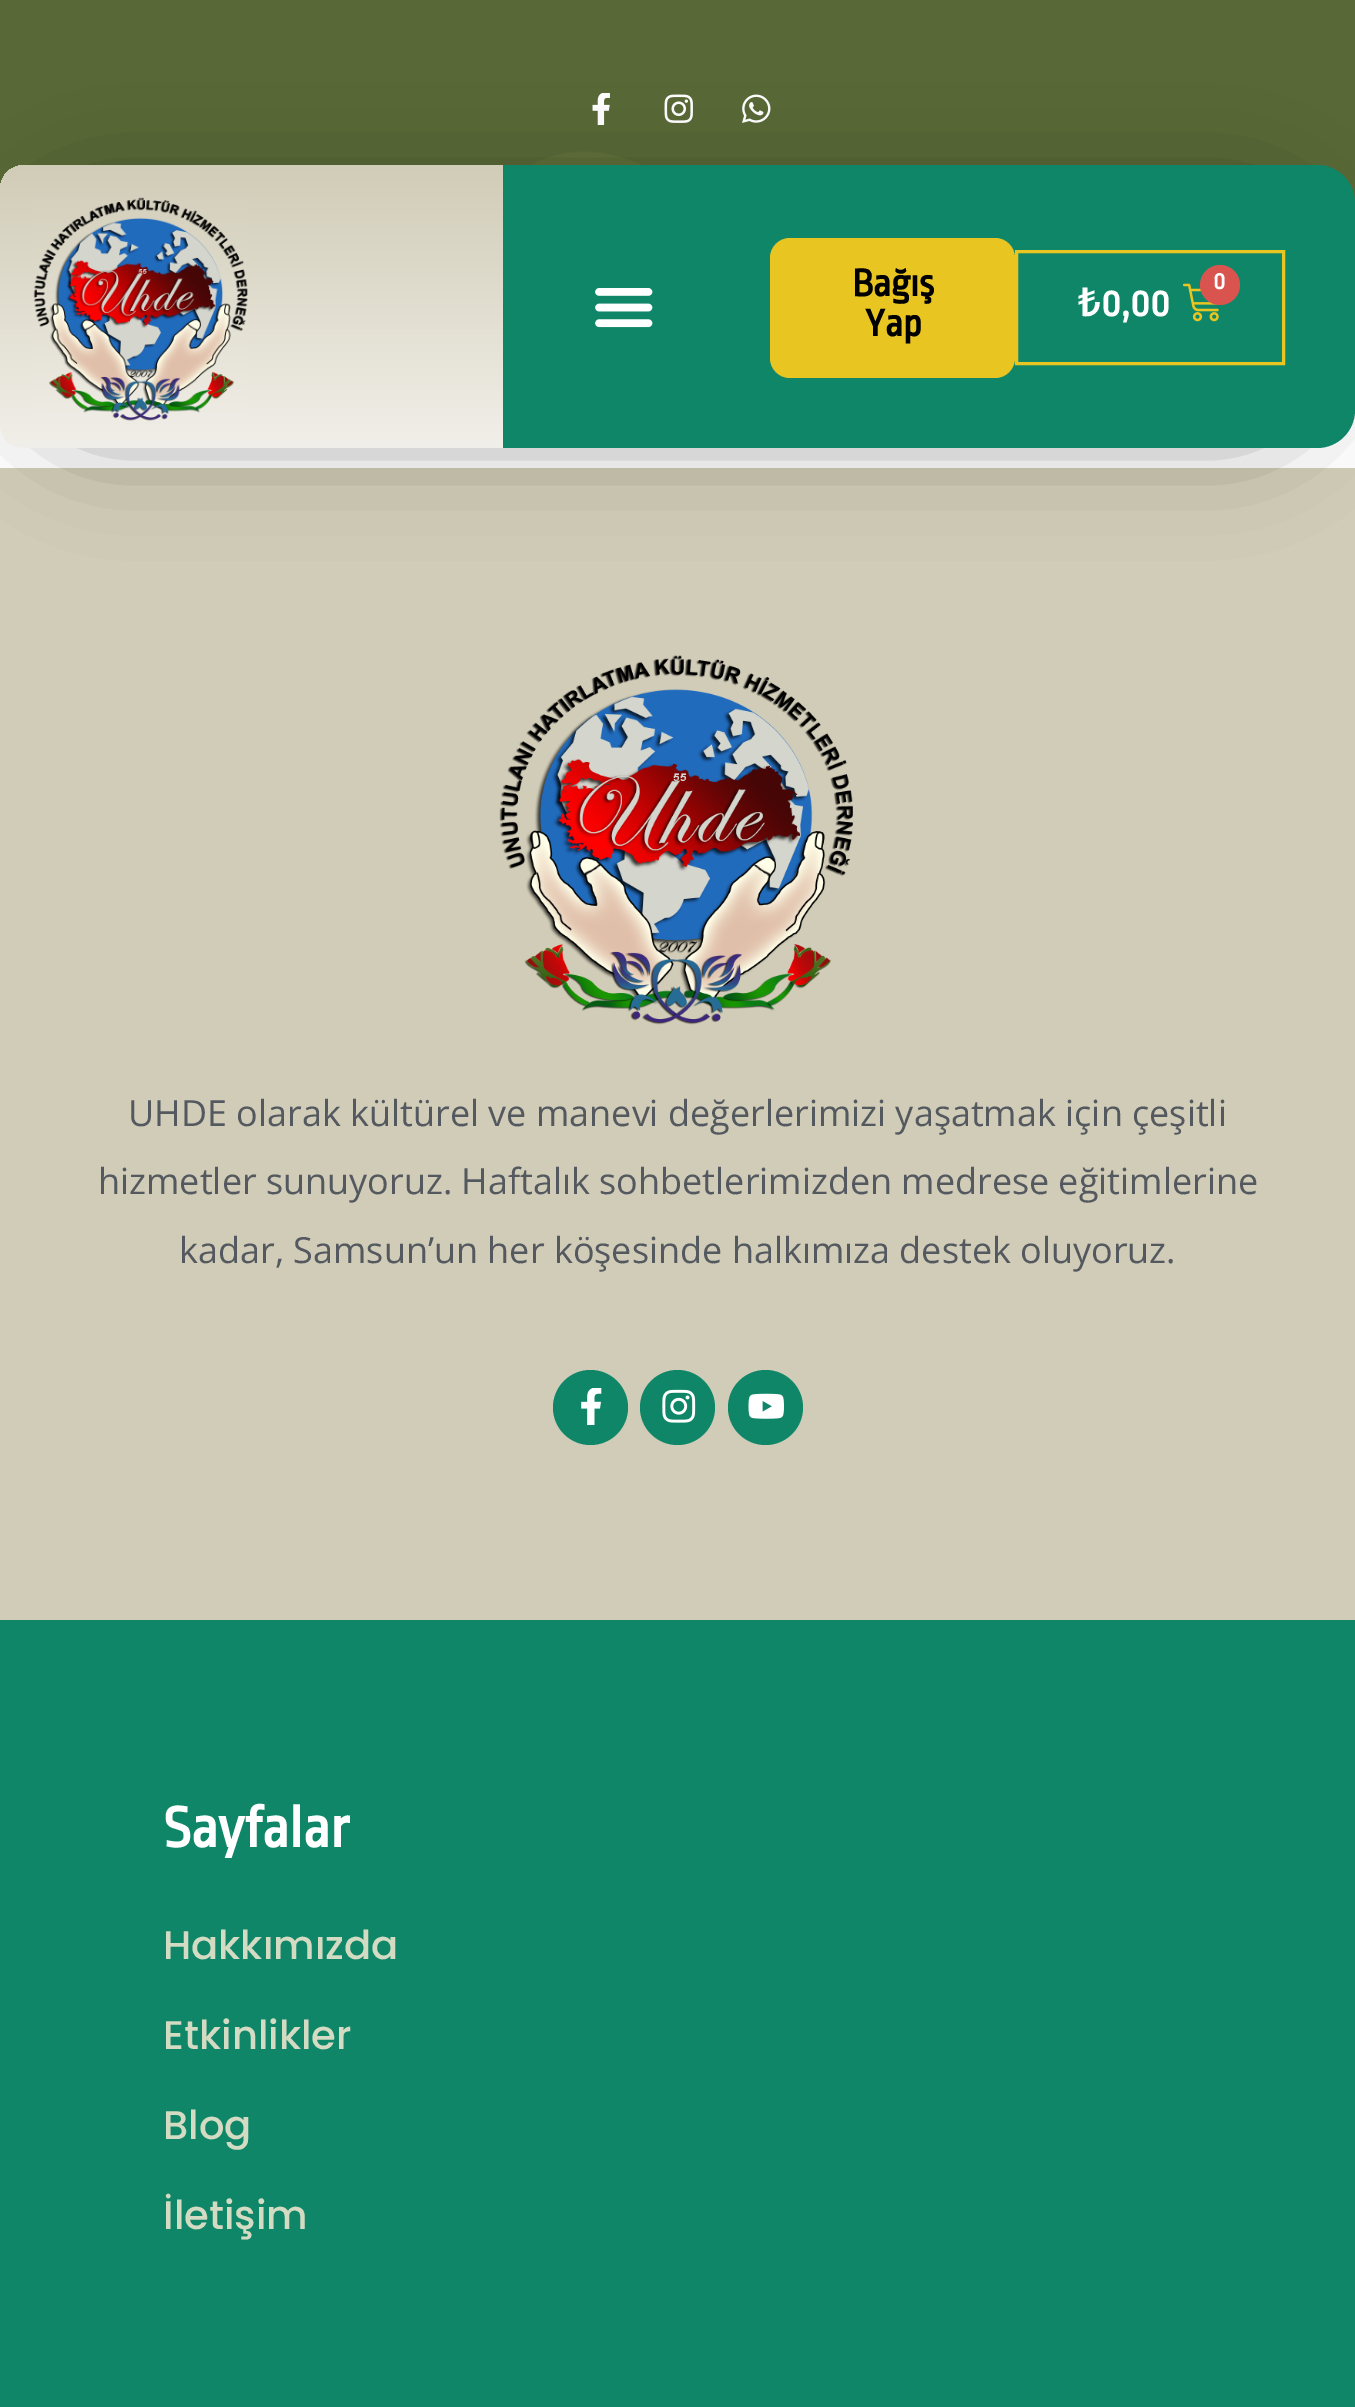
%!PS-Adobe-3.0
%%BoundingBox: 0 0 1355 2407
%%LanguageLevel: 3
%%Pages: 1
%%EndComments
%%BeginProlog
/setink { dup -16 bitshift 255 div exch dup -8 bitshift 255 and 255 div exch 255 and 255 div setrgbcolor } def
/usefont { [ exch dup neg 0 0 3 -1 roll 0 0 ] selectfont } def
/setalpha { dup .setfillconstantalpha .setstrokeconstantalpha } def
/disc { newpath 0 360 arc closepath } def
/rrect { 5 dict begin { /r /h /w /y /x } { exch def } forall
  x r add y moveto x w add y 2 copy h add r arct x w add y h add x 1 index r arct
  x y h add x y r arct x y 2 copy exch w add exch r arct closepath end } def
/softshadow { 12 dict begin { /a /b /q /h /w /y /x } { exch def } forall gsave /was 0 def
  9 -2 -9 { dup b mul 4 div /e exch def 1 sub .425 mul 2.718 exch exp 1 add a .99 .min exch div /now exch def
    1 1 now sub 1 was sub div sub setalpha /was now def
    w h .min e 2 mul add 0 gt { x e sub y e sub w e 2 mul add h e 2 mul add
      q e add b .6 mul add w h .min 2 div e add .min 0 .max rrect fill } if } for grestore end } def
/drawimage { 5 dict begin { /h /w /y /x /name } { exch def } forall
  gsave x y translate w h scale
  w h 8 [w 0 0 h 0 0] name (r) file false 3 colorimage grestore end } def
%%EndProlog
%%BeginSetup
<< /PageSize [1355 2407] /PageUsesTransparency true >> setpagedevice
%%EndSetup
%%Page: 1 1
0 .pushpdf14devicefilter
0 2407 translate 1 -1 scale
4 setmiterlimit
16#FFFFFF setink
0 0 1355 2407 rectfill
16#45571A setink
0 0 1355 203 rectfill
(img1.raw) 0 0 1355 203 drawimage
(img2.raw) 592 93 18 32 drawimage
(img3.raw) 664 94 29 29 drawimage
(img4.raw) 742 94 29 29 drawimage
16#D1CCB7 setink
0 468 1355 1152 rectfill
16#000000 setink
8 195 1325 253 126.5 50 0.32 softshadow
gsave 25 165 moveto 503 165 lineto 503 448 lineto 25 448 lineto 11 448 0 437 0 423 curveto 0 190 lineto 0 176 11 165 25 165 curveto closepath clip newpath
<< /ShadingType 2 /ColorSpace /DeviceRGB /Coords [251 165 251 448] /Extend [true true] /Function << /FunctionType 2 /Domain [0 1] /C0 [0.82 0.8 0.718] /C1 [0.945 0.937 0.914] /N 1 >> >> shfill grestore
(img5.raw) 33 197 215 224 drawimage
16#108669 setink
503 165 242 283 rectfill
(img6.raw) 595 288 58 40 drawimage
745 165 moveto 1317 165 lineto 1338 165 1355 182 1355 203 curveto 1355 410 lineto 1355 431 1338 448 1317 448 curveto 745 448 lineto closepath fill
16#E9C522 setink
770 238 245 140 20 rrect fill
/RopaSans-Bold 40 usefont
16#000000 setink
852 296 moveto (Bağış) show
865 336 moveto (Yap) show
16#E9C522 setink
3 setlinewidth
1016.5 251.5 267 112 rectstroke
(img7.raw) 1183 283 36 39 drawimage
16#D9534F setink
1220 285 20 disc fill
/RopaSans-Bold 25 usefont
16#FFFFFF setink
1213 289 moveto (0) show
/NotoSans-SemiBold 40 usefont
1078 316 moveto (₺) show
/RopaSans-Bold 40 usefont
1101 316 moveto (0,00) show
16#108669 setink
0 1620 1355 787 rectfill
(img8.raw) 499 655 354 370 drawimage
/OpenSans-Regular 36 usefont
16#54595F setink
[
    [(UHDE olarak kültürel ve manevi değerlerimizi yaşatmak için çeşitli) 128 1126]
    [(hizmetler sunuyoruz. Haftalık sohbetlerimizden medrese eğitimlerine) 98 1194]
    [(kadar, Samsun’un her köşesinde halkımıza destek oluyoruz.) 179 1263]
] { aload pop moveto show } forall
16#108669 setink
590.5 1407.5 37.5 disc fill
(img9.raw) 581 1388 21 37 drawimage
677.5 1407.5 37.5 disc fill
(img10.raw) 662 1389 34 34 drawimage
765.5 1407.5 37.5 disc fill
(img11.raw) 748 1393 36 26 drawimage
/RopaSans-Bold 60 usefont
16#FFFFFF setink
163 1847 moveto (Sayfalar) show
/Poppins-Medium 40 usefont
16#D4DBC3 setink
[
    [(Hakkımızda) 163 1959]
    [(Etkinlikler) 163 2049]
    [(Blog) 163 2139]
    [(İletişim) 163 2229]
] { aload pop moveto show } forall
.poppdf14devicefilter showpage
%%EOF
